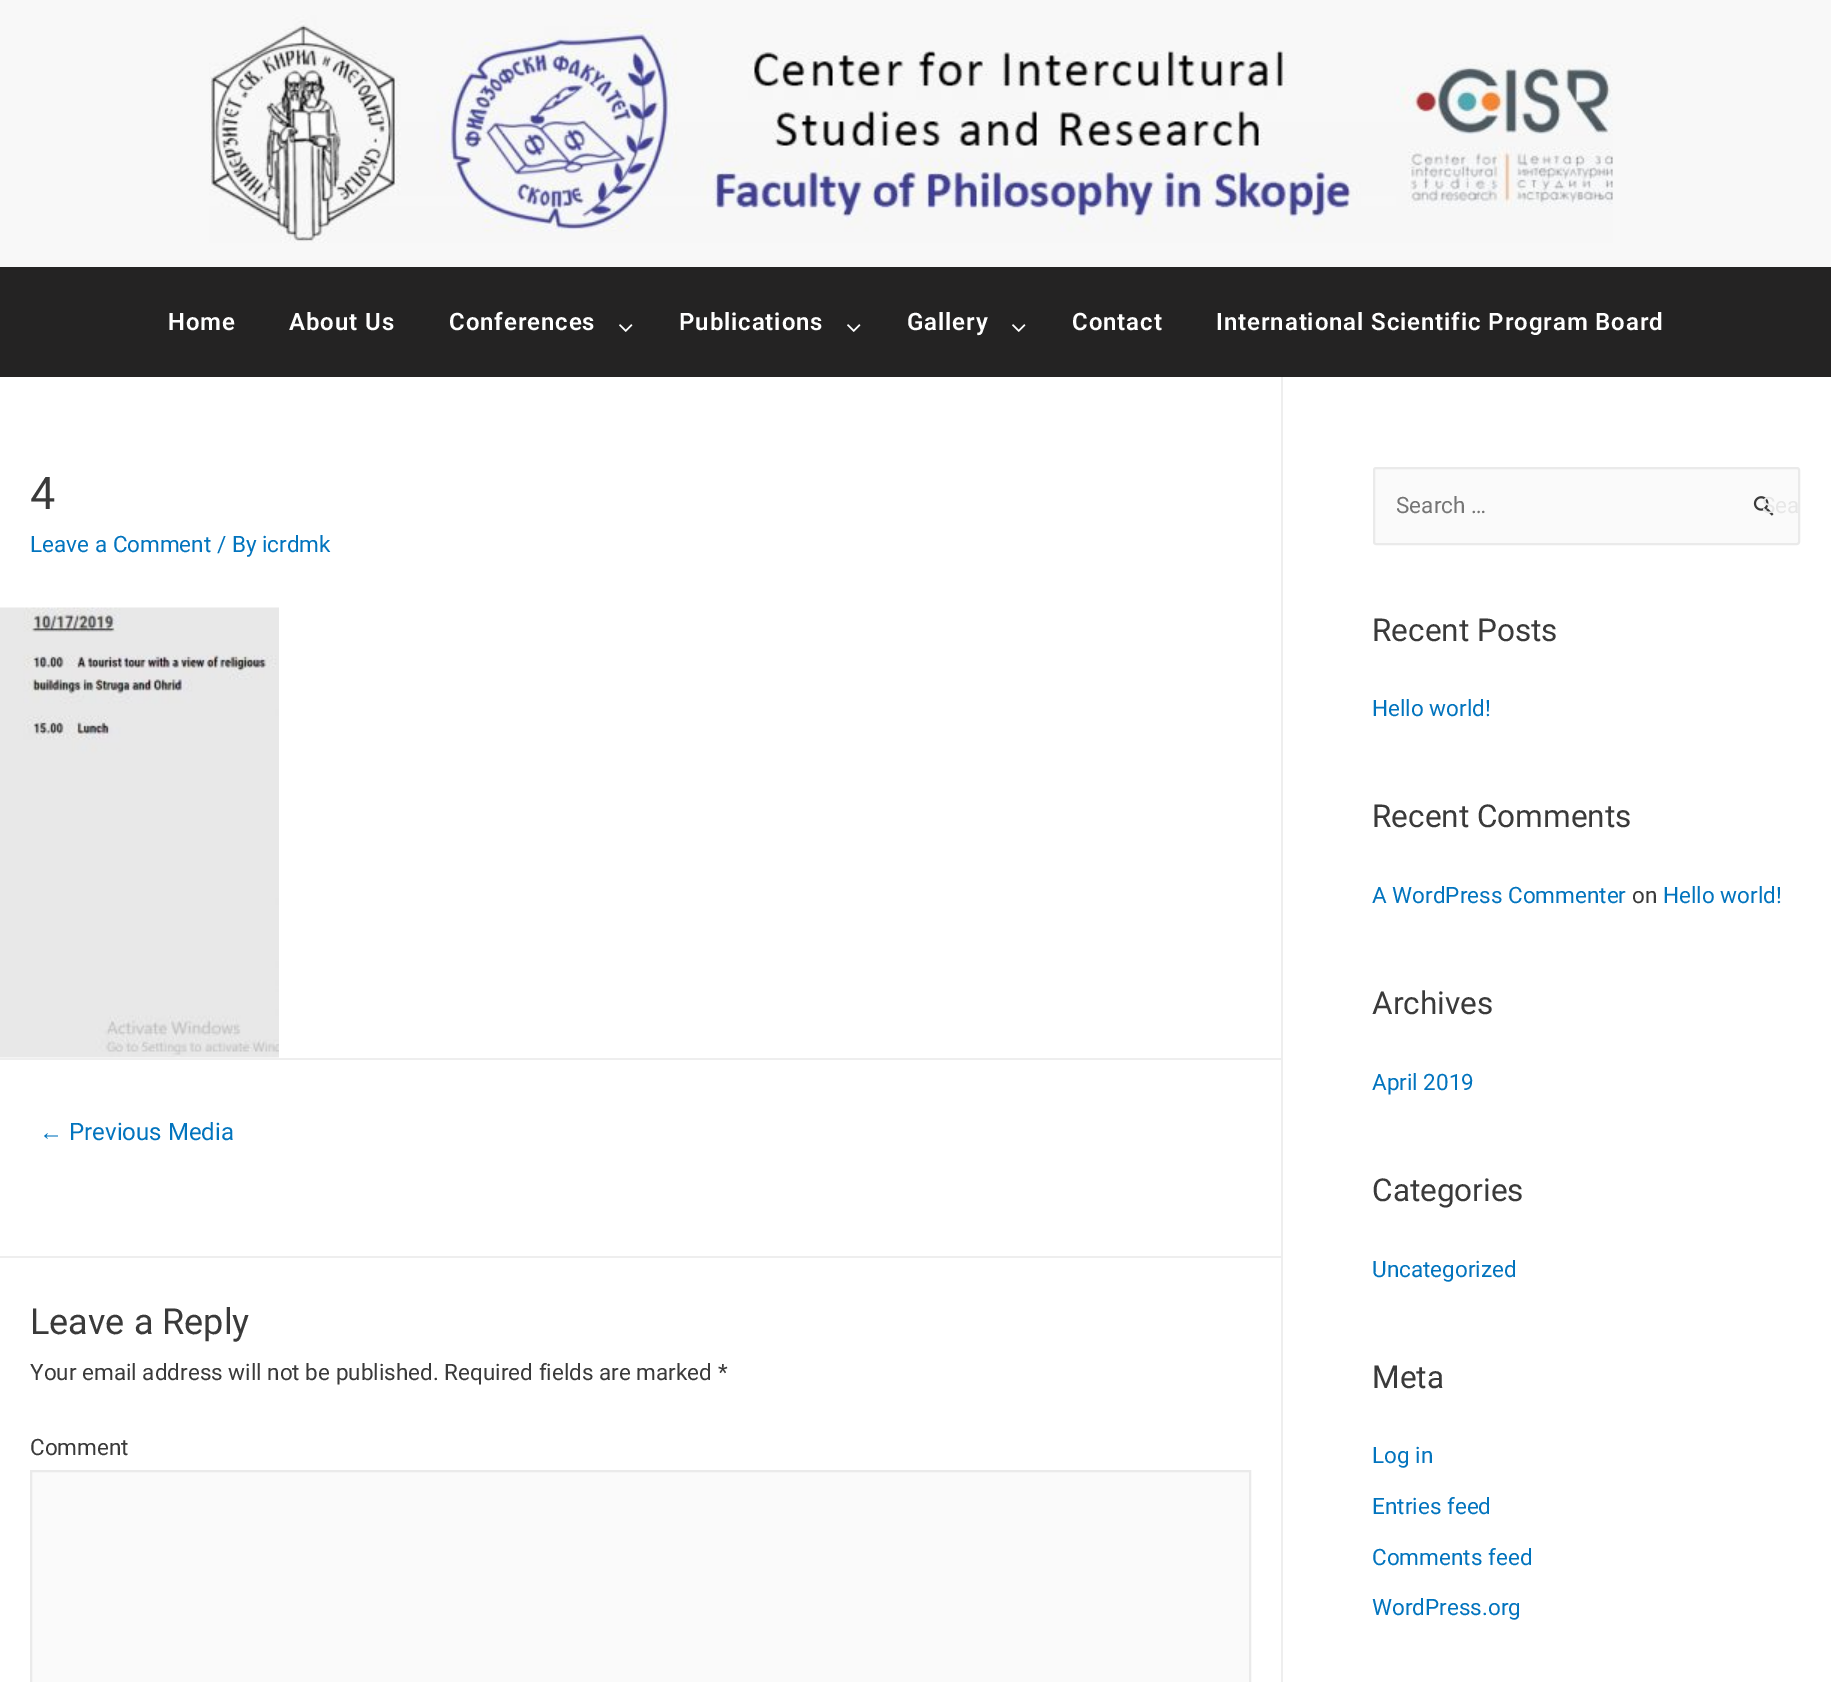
%!PS-Adobe-3.0
%%BoundingBox: 0 0 1831 1682
%%LanguageLevel: 3
%%Pages: 1
%%EndComments
%%BeginProlog
/setink { dup -16 bitshift 255 div exch dup -8 bitshift 255 and 255 div exch 255 and 255 div setrgbcolor } def
/usefont { [ exch dup neg 0 0 3 -1 roll 0 0 ] selectfont } def
/rrect { 5 dict begin { /r /h /w /y /x } { exch def } forall
  x r add y moveto x w add y 2 copy h add r arct x w add y h add x 1 index r arct
  x y h add x y r arct x y 2 copy exch w add exch r arct closepath end } def
/drawimage { 5 dict begin { /h /w /y /x /name } { exch def } forall
  gsave x y translate w h scale
  w h 8 [w 0 0 h 0 0] name (r) file false 3 colorimage grestore end } def
%%EndProlog
%%BeginSetup
<< /PageSize [1831 1682] >> setpagedevice
%%EndSetup
%%Page: 1 1
0 1682 translate 1 -1 scale
4 setmiterlimit
16#FFFFFF setink
0 0 1831 1682 rectfill
16#F8F8F8 setink
0 0 1831 267 rectfill
(img1.raw) 209 15 1404 228 drawimage
16#242323 setink
0 267 1831 110 rectfill
/Roboto-SemiBold 24 usefont
16#FFFFFF setink
168 330 moveto 0.9 0 (Home) ashow
289 330 moveto 0.9 0 (About Us) ashow
449 330 moveto 0.9 0 (Conferences) ashow
(img2.raw) 619 324 14 8 drawimage
679 330 moveto 0.9 0 (Publications) ashow
(img2.raw) 847 324 14 8 drawimage
907 330 moveto 0.9 0 (Gallery) ashow
(img2.raw) 1012 324 14 8 drawimage
1072 330 moveto 0.9 0 (Contact) ashow
1216 330 moveto 0.9 0 (International Scientific Program Board) ashow
16#EEEEEE setink
1281 377 2 1305 rectfill
/Roboto-Regular 45 usefont
16#3A3A3A setink
30 509 moveto (4) show
/Roboto-Regular 22.5 usefont
16#0274BE setink
30 552 moveto (Leave a Comment / By icrdmk) show
(img3.raw) 0 607 279 451 drawimage
16#EEEEEE setink
0 1058 1281 2 rectfill
/LiberationSans-Regular 24 usefont
16#0274BE setink
39 1140 moveto (←) show
/Roboto-Regular 24 usefont
69 1140 moveto (Previous Media) show
16#EEEEEE setink
0 1256 1281 2 rectfill
/Roboto-Regular 36 usefont
16#3A3A3A setink
30 1334 moveto (Leave a Reply) show
/Roboto-Regular 22.5 usefont
30 1380 moveto (Your email address will not be published. Required fields are marked *) show
30 1455 moveto (Comment) show
16#FAFAFA setink
31 1471 moveto 1250 1471 lineto 1250 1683 lineto 31 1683 lineto closepath gsave fill grestore
16#EAEAEA setink
2 setlinewidth
stroke
16#FAFAFA setink
1374 468 425 76 2 rrect gsave fill grestore
16#EAEAEA setink
stroke
16#757575 setink
1396 513 moveto (Search …) show
(img4.raw) 1753 496 21 20 drawimage
16#E7E7E7 setink
1762 513 moveto (Sea) show
/Roboto-Regular 31.5 usefont
16#3A3A3A setink
1372 641 moveto (Recent Posts) show
/Roboto-Regular 22.5 usefont
16#0274BE setink
1372 716 moveto (Hello world!) show
/Roboto-Regular 31.5 usefont
16#3A3A3A setink
1372 827 moveto (Recent Comments) show
/Roboto-Regular 22.5 usefont
16#0274BE setink
1372 903 moveto (A WordPress Commenter) show
16#3A3A3A setink
1632 903 moveto (on) show
16#0274BE setink
1663 903 moveto (Hello world!) show
/Roboto-Regular 31.5 usefont
16#3A3A3A setink
1372 1014 moveto (Archives) show
/Roboto-Regular 22.5 usefont
16#0274BE setink
1372 1090 moveto (April 2019) show
/Roboto-Regular 31.5 usefont
16#3A3A3A setink
1372 1201 moveto (Categories) show
/Roboto-Regular 22.5 usefont
16#0274BE setink
1372 1277 moveto (Uncategorized) show
/Roboto-Regular 31.5 usefont
16#3A3A3A setink
1372 1388 moveto (Meta) show
/Roboto-Regular 22.5 usefont
16#0274BE setink
[
    [(Log in) 1372 1463]
    [(Entries feed) 1372 1514]
    [(Comments feed) 1372 1565]
    [(WordPress.org) 1372 1615]
] { aload pop moveto show } forall
showpage
%%EOF
